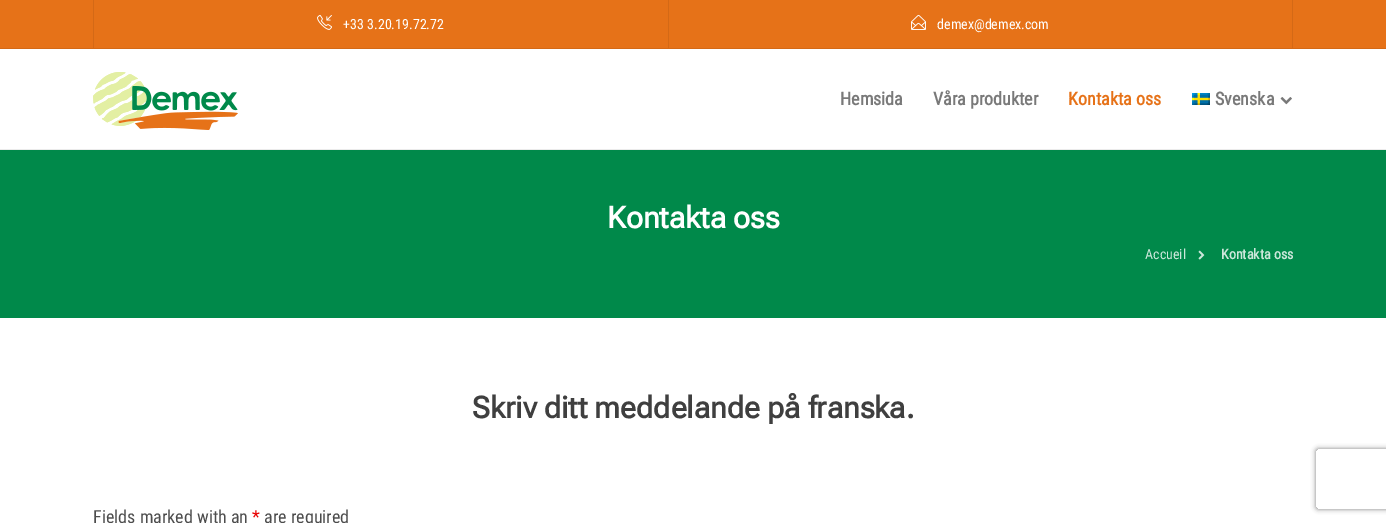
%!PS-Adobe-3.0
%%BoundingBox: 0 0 1386 523
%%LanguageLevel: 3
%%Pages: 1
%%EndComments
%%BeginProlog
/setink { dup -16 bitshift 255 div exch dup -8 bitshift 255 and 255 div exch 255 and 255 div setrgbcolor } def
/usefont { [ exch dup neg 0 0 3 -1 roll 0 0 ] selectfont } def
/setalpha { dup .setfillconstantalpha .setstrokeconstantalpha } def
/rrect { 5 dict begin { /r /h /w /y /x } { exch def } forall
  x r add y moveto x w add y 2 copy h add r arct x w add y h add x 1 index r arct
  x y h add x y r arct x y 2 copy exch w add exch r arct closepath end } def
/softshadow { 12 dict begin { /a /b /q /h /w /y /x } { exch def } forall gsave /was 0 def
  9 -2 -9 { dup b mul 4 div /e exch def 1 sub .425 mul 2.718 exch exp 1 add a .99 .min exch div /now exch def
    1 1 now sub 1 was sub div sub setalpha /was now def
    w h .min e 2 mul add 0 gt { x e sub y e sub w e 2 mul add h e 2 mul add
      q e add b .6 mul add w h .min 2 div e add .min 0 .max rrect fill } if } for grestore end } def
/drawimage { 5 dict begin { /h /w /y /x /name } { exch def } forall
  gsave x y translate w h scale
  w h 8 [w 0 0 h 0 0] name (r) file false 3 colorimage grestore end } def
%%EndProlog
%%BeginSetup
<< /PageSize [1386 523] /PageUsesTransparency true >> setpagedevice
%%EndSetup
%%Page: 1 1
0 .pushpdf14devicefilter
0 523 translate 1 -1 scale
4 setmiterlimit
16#FFFFFF setink
0 0 1386 523 rectfill
[
    [0 0 1386 48 16#E67218]
    [0 48 1386 1 16#D46916]
    [1292 0 1 48 16#D46916]
    [93 0 1 48 16#D46916]
] { aload pop setink rectfill } forall
(img1.raw) 317 14 15 16 drawimage
/RobotoCondensed-Regular 14 usefont
16#FFFFFF setink
343 29 moveto (+33 3.20.19.72.72) show
16#D46916 setink
668 0 1 48 rectfill
(img2.raw) 911 14 15 16 drawimage
16#FFFFFF setink
937 29 moveto (demex@demex.com) show
16#EBEBEB setink
0 149 1386 1 rectfill
(img3.raw) 93 72 145 58 drawimage
/RobotoCondensed-Bold 18 usefont
16#797979 setink
840 105 moveto (Hemsida) show
933 105 moveto (Våra produkter) show
16#E67218 setink
1068 105 moveto (Kontakta oss) show
(img4.raw) 1192 93 18 12 drawimage
16#797979 setink
1215 105 moveto (Svenska) show
(img5.raw) 1280 97 12 8 drawimage
16#00894A setink
0 150 1386 168 rectfill
/RobotoFlex-Bold 30 usefont
16#FFFFFF setink
607 228 moveto (Kontakta oss) show
/RobotoCondensed-Regular 14 usefont
16#CCE7DB setink
1145 259 moveto (Accueil) show
(img6.raw) 1198 250 7 10 drawimage
/RobotoCondensed-Bold 14 usefont
1221 259 moveto (Kontakta oss) show
/RobotoFlex-Bold 30 usefont
16#3F3F3F setink
472 418 moveto (Skriv ditt meddelande på franska.) show
/RobotoCondensed-Regular 18 usefont
16#4D4D4D setink
93 523 moveto (Fields marked with an) show
16#E80000 setink
252 523 moveto (*) show
16#4D4D4D setink
264 523 moveto (are required) show
gsave
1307 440 moveto 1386 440 lineto 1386 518 lineto 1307 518 lineto closepath 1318 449 moveto 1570 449 lineto 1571 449 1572 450 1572 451 curveto 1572 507 lineto 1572 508 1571 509 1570 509 curveto 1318 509 lineto 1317 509 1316 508 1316 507 curveto 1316 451 lineto 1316 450 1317 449 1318 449 curveto closepath eoclip newpath
16#808080 setink
1316 449 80 60 2 2.5 1 softshadow
grestore
.poppdf14devicefilter showpage
%%EOF
